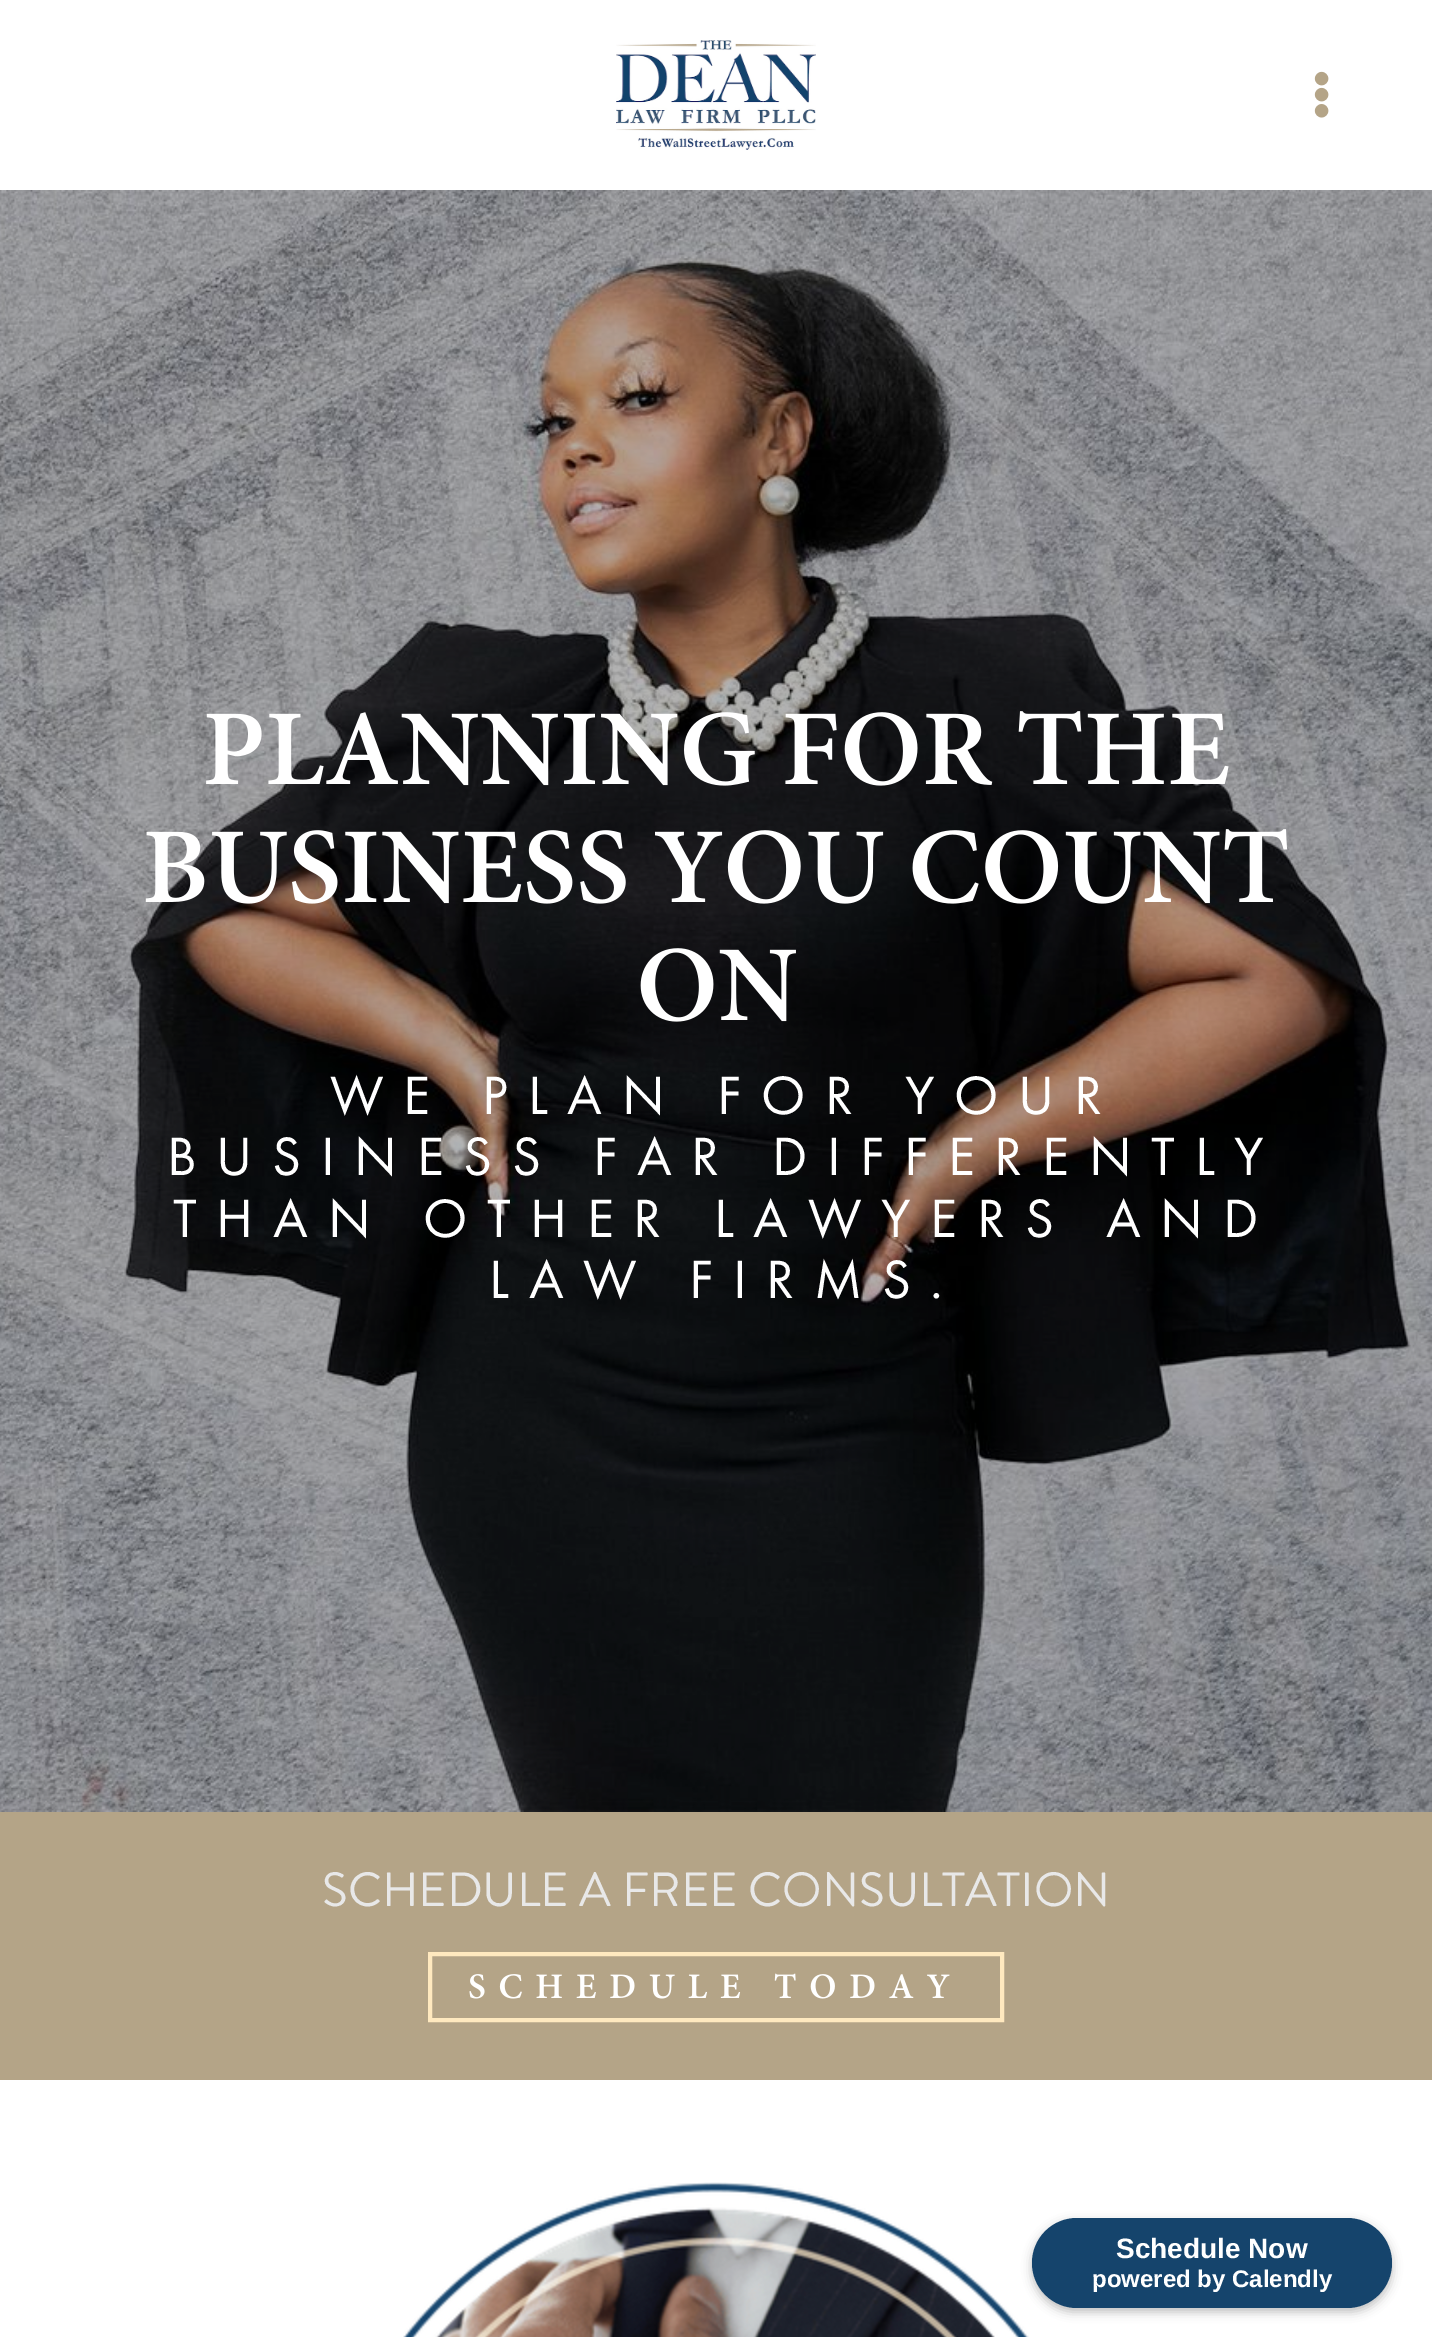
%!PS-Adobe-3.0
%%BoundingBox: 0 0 1432 2337
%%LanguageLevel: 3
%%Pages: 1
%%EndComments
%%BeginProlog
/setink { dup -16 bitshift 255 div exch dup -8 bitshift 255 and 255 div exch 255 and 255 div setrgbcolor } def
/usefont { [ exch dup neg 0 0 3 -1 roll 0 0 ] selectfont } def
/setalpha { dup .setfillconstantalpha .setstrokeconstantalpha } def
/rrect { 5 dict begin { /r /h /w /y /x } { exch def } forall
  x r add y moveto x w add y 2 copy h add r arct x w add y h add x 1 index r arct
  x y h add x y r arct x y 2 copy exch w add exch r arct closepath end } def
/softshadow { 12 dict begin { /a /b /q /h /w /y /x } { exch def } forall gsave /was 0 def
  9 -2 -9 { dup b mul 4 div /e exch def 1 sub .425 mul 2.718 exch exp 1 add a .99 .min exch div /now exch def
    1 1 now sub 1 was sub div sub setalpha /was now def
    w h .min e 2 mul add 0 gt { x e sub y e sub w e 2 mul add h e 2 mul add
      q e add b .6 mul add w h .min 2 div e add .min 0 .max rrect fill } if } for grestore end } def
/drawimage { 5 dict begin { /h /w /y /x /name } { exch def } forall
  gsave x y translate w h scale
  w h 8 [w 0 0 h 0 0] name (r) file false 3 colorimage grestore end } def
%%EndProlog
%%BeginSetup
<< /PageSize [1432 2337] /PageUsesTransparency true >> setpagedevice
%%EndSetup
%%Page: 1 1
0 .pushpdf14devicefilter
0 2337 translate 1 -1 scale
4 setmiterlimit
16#FFFFFF setink
0 0 1432 2337 rectfill
(img1.raw) 616 40 200 110 drawimage
(img2.raw) 1314 71 15 47 drawimage
(img3.raw) 0 190 1432 1622 drawimage
(img4.raw) 206 711 1023 75 drawimage
(img5.raw) 145 829 1143 75 drawimage
(img6.raw) 640 948 156 74 drawimage
/FuturaPT-Regular 56 usefont
330 1114 moveto 19.6 0 (WE PLAN FOR YOUR) ashow
167 1175 moveto 19.6 0 (BUSINESS FAR DIFFERENTLY) ashow
173 1237 moveto 19.6 0 (THAN OTHER LAWYERS AND) ashow
489 1298 moveto 19.6 0 (LAW FIRMS.) ashow
16#B4A487 setink
0 1812 1432 268 rectfill
/BrandonGrotesque-Regular 48 usefont
16#E8E8E8 setink
322 1906 moveto (SCHEDULE A FREE CONSULTATION) show
16#FFE9BF setink
4 setlinewidth
430 1954 572 66 rectstroke
(img7.raw) 469 1973 481 26 drawimage
(img8.raw) 403 2182 626 155 drawimage
16#000000 setink
1032 2222 360 90 45 5 0.25 softshadow
16#15446C setink
1032 2218 360 90 45 rrect fill
/LiberationSans-Bold 28 usefont
16#FFFFFF setink
1116 2258 moveto (Schedule Now) show
/LiberationSans-Bold 24 usefont
1092 2287 moveto (powered by Calendly) show
.poppdf14devicefilter showpage
%%EOF
